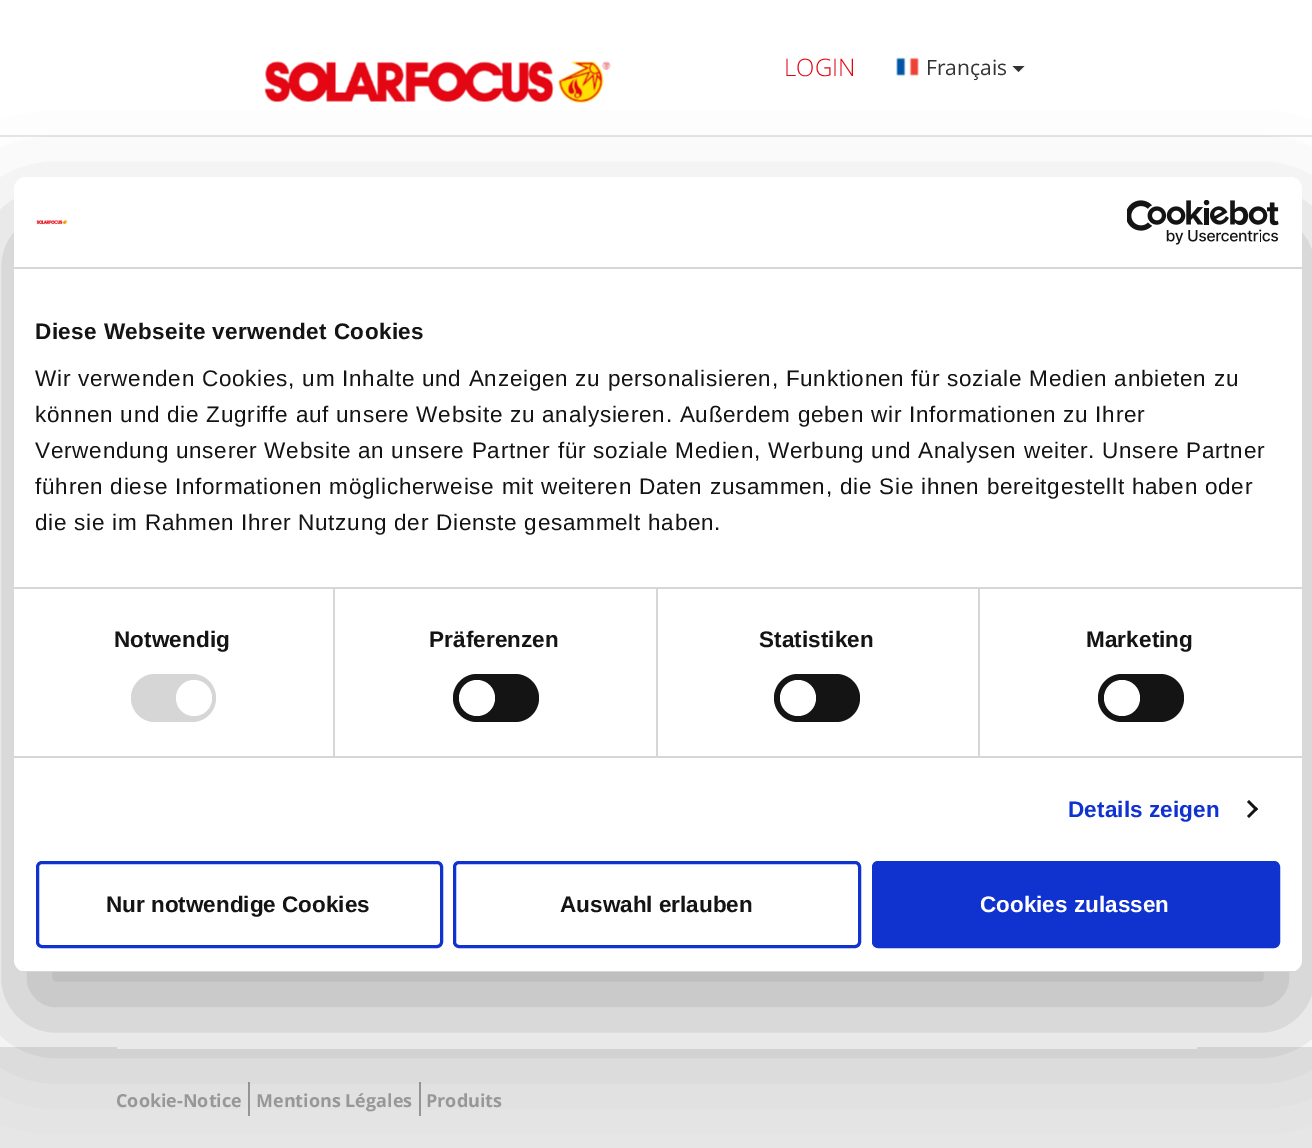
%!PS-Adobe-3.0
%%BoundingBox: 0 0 1312 1148
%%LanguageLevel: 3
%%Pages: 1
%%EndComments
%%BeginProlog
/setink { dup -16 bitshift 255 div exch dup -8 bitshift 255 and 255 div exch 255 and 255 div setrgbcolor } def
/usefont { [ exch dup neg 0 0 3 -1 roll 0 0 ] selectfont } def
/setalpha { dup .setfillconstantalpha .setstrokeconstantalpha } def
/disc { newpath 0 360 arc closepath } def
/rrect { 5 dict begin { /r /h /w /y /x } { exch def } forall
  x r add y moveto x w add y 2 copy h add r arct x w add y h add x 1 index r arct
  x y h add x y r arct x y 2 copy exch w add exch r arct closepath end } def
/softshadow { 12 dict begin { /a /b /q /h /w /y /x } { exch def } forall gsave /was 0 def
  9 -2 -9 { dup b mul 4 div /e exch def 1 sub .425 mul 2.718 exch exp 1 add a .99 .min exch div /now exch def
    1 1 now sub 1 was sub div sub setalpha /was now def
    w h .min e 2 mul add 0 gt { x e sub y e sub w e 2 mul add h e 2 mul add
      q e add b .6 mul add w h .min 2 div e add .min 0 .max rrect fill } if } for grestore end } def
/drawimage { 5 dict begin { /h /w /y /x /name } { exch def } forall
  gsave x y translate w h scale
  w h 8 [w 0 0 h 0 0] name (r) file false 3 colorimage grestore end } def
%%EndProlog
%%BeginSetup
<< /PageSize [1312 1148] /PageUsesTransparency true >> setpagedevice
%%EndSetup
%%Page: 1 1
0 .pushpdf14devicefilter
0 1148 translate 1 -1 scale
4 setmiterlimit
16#FFFFFF setink
0 0 1312 1148 rectfill
16#E6E6E6 setink
0 135 1312 2 rectfill
(img1.raw) 264 61 347 43 drawimage
/OpenSans-Light 24 usefont
16#E20613 setink
784 76 moveto (LOGIN) show
(img2.raw) 896 57 23 19 drawimage
/OpenSans-Regular 21 usefont
16#333333 setink
926 75 moveto (Français) show
1012.5 66 moveto 1024.5 66 lineto 1018.5 72 lineto closepath fill
[
    [0 1047 1312 101 16#E6E6E6]
    [117 1047 1080 2 16#FFFFFF]
    [248 1082 2 34 16#979797]
    [419 1082 2 34 16#979797]
] { aload pop setink rectfill } forall
16#000000 setink
14 225 1288 795 12 51 0.3 softshadow
16#FFFFFF setink
14 177 1288 795 12 rrect fill
16#D6D6D6 setink
14 267 1288 2 rectfill
(img3.raw) 36 220 32 5 drawimage
(img4.raw) 1127 200 152 45 drawimage
[
    [333 588 2 168 16#D6D6D6]
    [656 588 2 168 16#D6D6D6]
    [978 588 2 168 16#D6D6D6]
    [14 587 1288 2 16#D6D6D6]
] { aload pop setink rectfill } forall
/LiberationSans-Bold 22.5 usefont
16#141414 setink
35 339 moveto 0.4 0 (Diese Webseite verwendet Cookies) ashow
/LiberationSans-Regular 22.5 usefont
35 386 moveto 0.75 0 (Wir verwenden Cookies, um Inhalte und Anzeigen zu personalisieren, Funktionen für soziale Medien anbieten zu) ashow
35 422 moveto 0.75 0 (können und die Zugriffe auf unsere Website zu analysieren. Außerdem geben wir Informationen zu Ihrer) ashow
35 458 moveto 0.75 0 (Verwendung unserer Website an unsere Partner für soziale Medien, Werbung und Analysen weiter. Unsere Partner) ashow
35 494 moveto 0.75 0 (führen diese Informationen möglicherweise mit weiteren Daten zusammen, die Sie ihnen bereitgestellt haben oder) ashow
35 530 moveto 0.75 0 (die sie im Rahmen Ihrer Nutzung der Dienste gesammelt haben.) ashow
16#D6D6D6 setink
14 756 1288 2 rectfill
/LiberationSans-Bold 22.5 usefont
16#141414 setink
114 647 moveto 0.1 0 (Notwendig) ashow
16#D6D6D6 setink
131 674 85 48 24 rrect fill
16#FFFFFF setink
194 698 18 disc fill
16#141414 setink
429 647 moveto 0.1 0 (Präferenzen) ashow
453 674 86 48 24 rrect fill
16#FFFFFF setink
477 698 18 disc fill
16#141414 setink
759 647 moveto 0.1 0 (Statistiken) ashow
774 674 86 48 24 rrect fill
16#FFFFFF setink
798 698 18 disc fill
16#141414 setink
1086 647 moveto 0.1 0 (Marketing) ashow
1098 674 86 48 24 rrect fill
16#FFFFFF setink
1122 698 18 disc fill
16#1032CF setink
1068 817 moveto 0.1 0 (Details zeigen) ashow
16#141414 setink
1249 800 moveto 1258 809 lineto 1256 811 lineto 1247 802 lineto closepath fill
1256 807 moveto 1258 809 lineto 1249 818 lineto 1247 816 lineto closepath fill
gsave
14 177 1288 795 12 rrect clip newpath
16#D6D6D6 setink
14 971 1288 1 rectfill
grestore
16#1032CF setink
3 setlinewidth
37.5 862.5 404 84 4.5 rrect stroke
16#141414 setink
106 912 moveto (Nur notwendige Cookies) show
16#1032CF setink
454.5 862.5 405 84 4.5 rrect stroke
16#141414 setink
560 912 moveto (Auswahl erlauben) show
16#1032CF setink
873.5 862.5 405 84 4.5 rrect gsave fill grestore
stroke
16#FFFFFF setink
980 912 moveto (Cookies zulassen) show
/OpenSans-Bold 18 usefont
16#979797 setink
[
    [(Cookie-Notice) 116 1107]
    [(Mentions Légales) 256 1107]
    [(Produits) 426 1107]
] { aload pop moveto show } forall
.poppdf14devicefilter showpage
%%EOF
